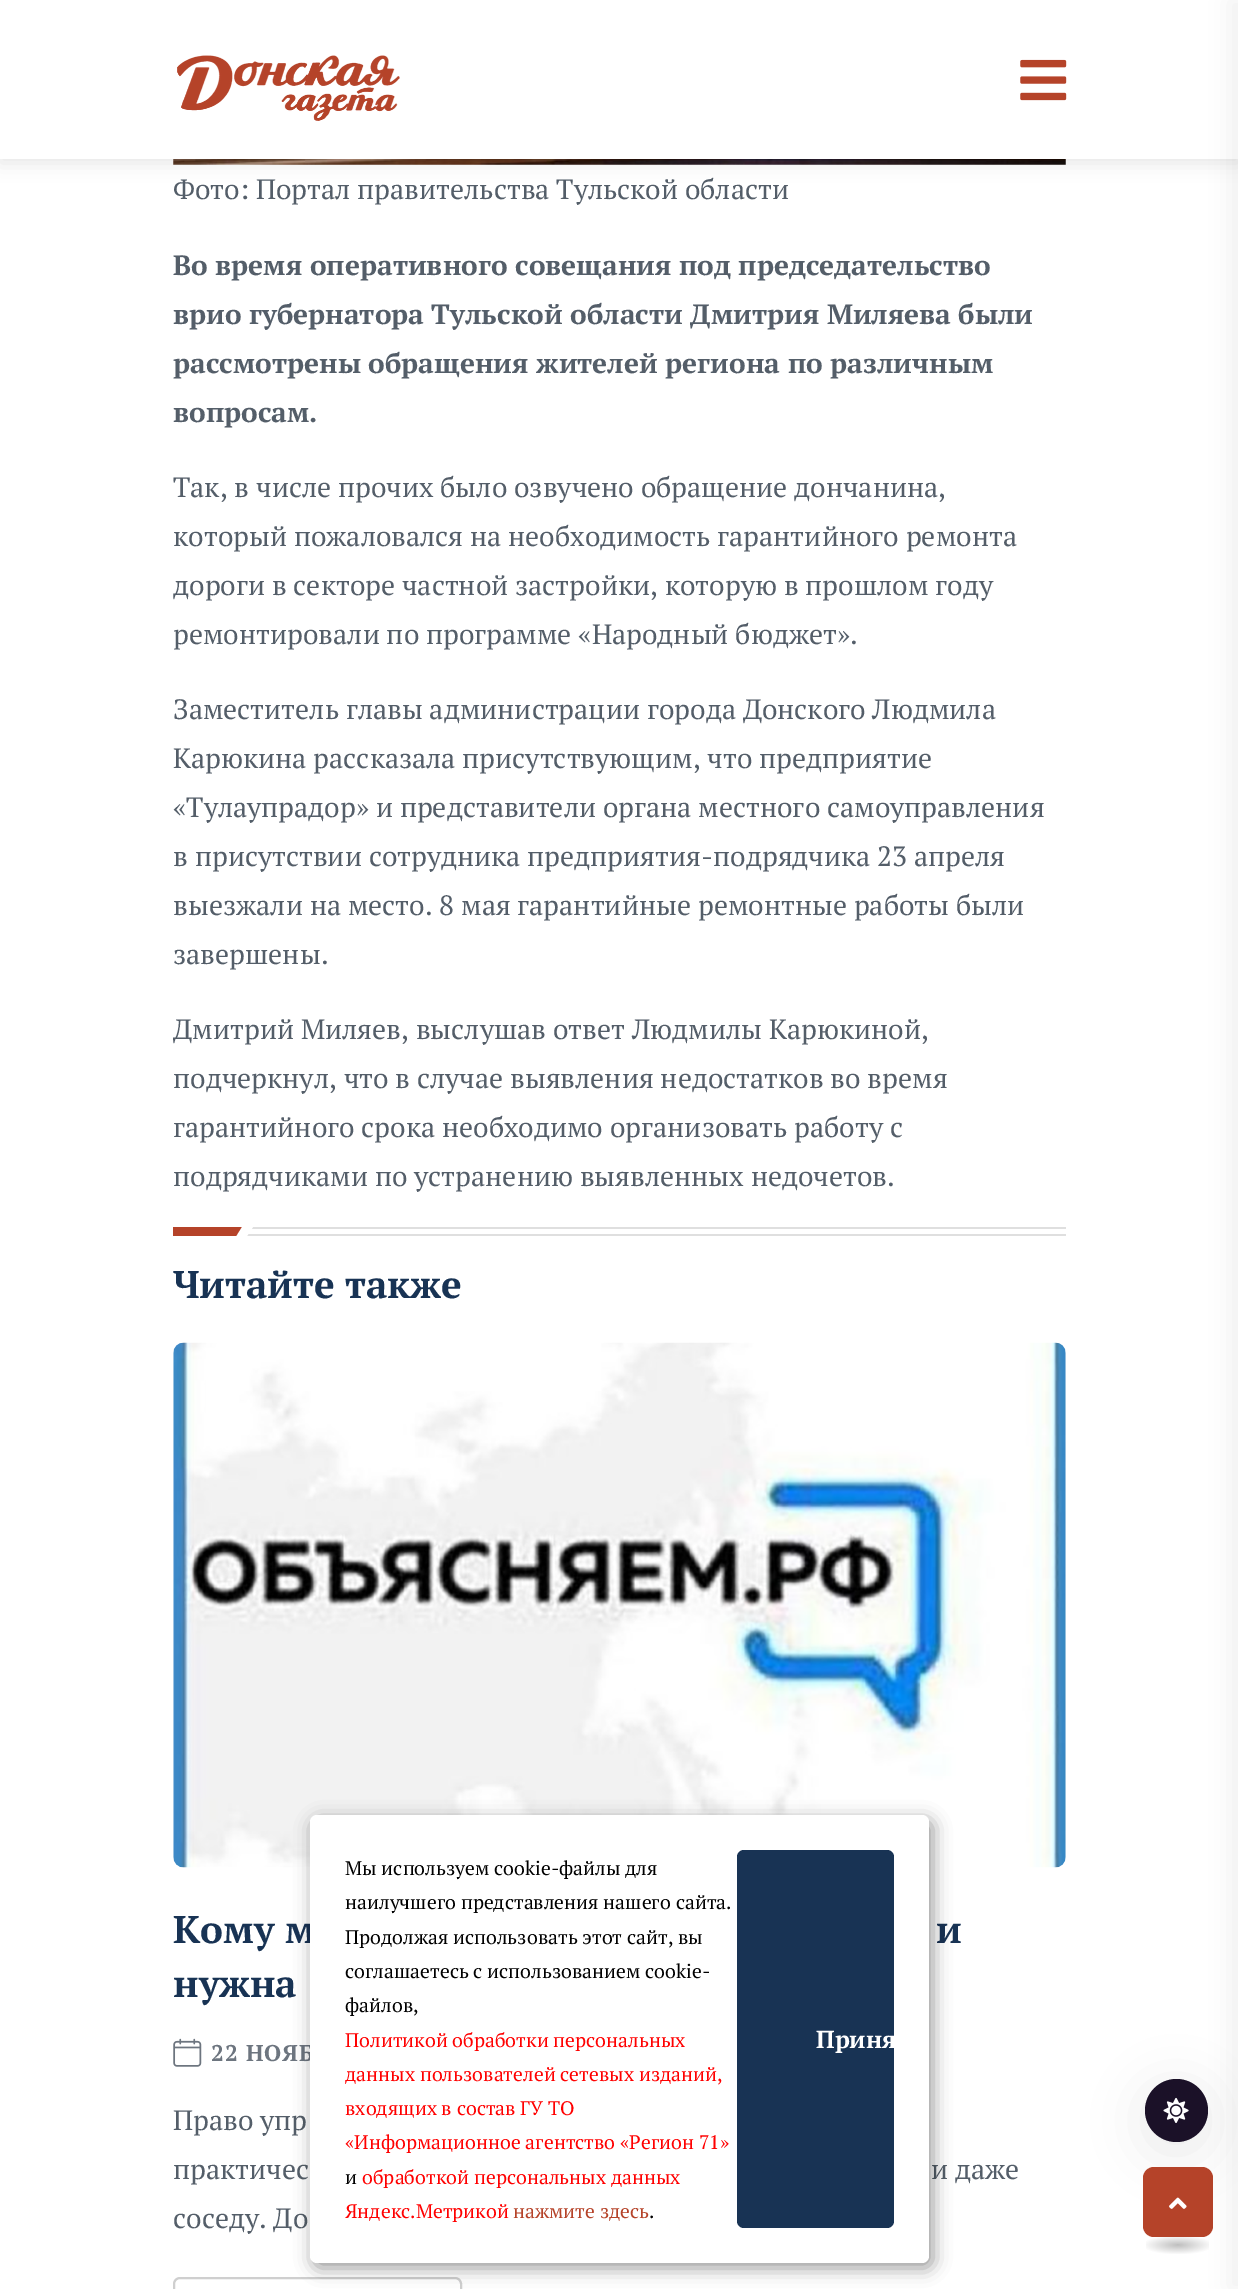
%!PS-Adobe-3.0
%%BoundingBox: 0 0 1238 2289
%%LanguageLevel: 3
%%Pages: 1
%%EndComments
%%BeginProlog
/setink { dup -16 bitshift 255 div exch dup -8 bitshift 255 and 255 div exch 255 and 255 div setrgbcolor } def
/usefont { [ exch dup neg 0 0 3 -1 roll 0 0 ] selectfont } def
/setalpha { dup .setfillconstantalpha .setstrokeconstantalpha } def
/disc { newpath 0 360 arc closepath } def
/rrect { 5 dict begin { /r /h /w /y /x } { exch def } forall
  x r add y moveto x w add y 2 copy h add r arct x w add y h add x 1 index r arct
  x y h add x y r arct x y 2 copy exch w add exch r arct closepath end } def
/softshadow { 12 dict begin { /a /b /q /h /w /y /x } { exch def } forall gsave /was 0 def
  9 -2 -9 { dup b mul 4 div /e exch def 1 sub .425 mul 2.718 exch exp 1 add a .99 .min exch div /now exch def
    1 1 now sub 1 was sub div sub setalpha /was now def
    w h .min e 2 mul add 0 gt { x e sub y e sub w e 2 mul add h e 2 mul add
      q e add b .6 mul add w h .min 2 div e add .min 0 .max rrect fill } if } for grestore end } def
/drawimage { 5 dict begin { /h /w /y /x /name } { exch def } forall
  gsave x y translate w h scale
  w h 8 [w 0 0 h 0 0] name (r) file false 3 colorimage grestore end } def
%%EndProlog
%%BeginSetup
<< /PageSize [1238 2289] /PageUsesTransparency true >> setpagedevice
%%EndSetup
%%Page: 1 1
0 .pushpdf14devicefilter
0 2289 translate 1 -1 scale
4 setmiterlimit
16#FFFFFF setink
0 0 1238 2289 rectfill
(img3.raw) 173 159 893 6 drawimage
16#000000 setink
0 4 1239 159 0 9 0.1 softshadow
16#FFFFFF setink
0 0 1238 159 rectfill
(img1.raw) 177 55 223 66 drawimage
(img2.raw) 1020 59 47 42 drawimage
16#000000 setink
1146 2090 60 61 30 25 0.08 softshadow
16#1B1128 setink
1176.5 2110.5 31.5 disc fill
16#B54329 setink
1143 2167 70 70 11 rrect fill
gsave 1146 2237 moveto 1209 2237 lineto 1209 2254 lineto 1146 2254 lineto closepath clip newpath 1178 2245 translate 45 12 scale
<< /ShadingType 3 /ColorSpace /DeviceRGB /Coords [0 0 0 0 0 1] /Extend [true true] /Function << /FunctionType 3 /Domain [0 1] /Functions [<< /FunctionType 2 /Domain [0 1] /C0 [0.749 0.749 0.749] /C1 [1 1 1] /N 1 >> << /FunctionType 2 /Domain [0 1] /C0 [1 1 1] /C1 [1 1 1] /N 1 >>] /Bounds [0.8] /Encode [0 1 0 1] >> >> shfill grestore
16#000000 setink
1229 0 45 2289 0 12 0.06 softshadow
/PTSerif-Regular 28 usefont
16#545E69 setink
173 199 moveto (Фото: Портал правительства Тульской области) show
/PTSerif-Bold 28 usefont
[
    [(Во время оперативного совещания под председательство) 173 275]
    [(врио губернатора Тульской области Дмитрия Миляева были) 173 324]
    [(рассмотрены обращения жителей региона по различным) 173 373]
    [(вопросам.) 173 422]
] { aload pop moveto show } forall
/PTSerif-Regular 28 usefont
[
    [(Так, в числе прочих было озвучено обращение дончанина,) 173 497]
    [(который пожаловался на необходимость гарантийного ремонта) 173 546]
    [(дороги в секторе частной застройки, которую в прошлом году) 173 595]
    [(ремонтировали по программе «Народный бюджет».) 173 644]
    [(Заместитель главы администрации города Донского Людмила) 173 719]
    [(Карюкина рассказала присутствующим, что предприятие) 173 768]
    [(«Тулаупрадор» и представители органа местного самоуправления) 173 817]
    [(в присутствии сотрудника предприятия-подрядчика 23 апреля) 173 866]
    [(выезжали на место. 8 мая гарантийные ремонтные работы были) 173 915]
    [(завершены.) 173 964]
    [(Дмитрий Миляев, выслушав ответ Людмилы Карюкиной,) 173 1039]
    [(подчеркнул, что в случае выявления недостатков во время) 173 1088]
    [(гарантийного срока необходимо организовать работу с) 173 1137]
    [(подрядчиками по устранению выявленных недочетов.) 173 1186]
] { aload pop moveto show } forall
[
    [251 1227 815 2 16#DFDFDF]
    [247 1234 819 2 16#DFDFDF]
    [173 1227 69 9 16#B54329]
] { aload pop setink rectfill } forall
16#FFFFFF setink
243 1225.5 moveto 254 1225.5 lineto 247 1236 lineto 236.5 1236 lineto closepath fill
/PTSerif-Bold 38.5 usefont
16#183354 setink
173 1298 moveto (Читайте также) show
(img4.raw) 173 1342 893 526 drawimage
[
    [(Кому м) 173 1943]
    [(и) 936 1943]
    [(нужна) 173 1997]
] { aload pop moveto show } forall
(img5.raw) 173 2038 29 29 drawimage
/PTSerif-Bold 22.75 usefont
16#6D757F setink
211 2061 moveto 1 0 (22 НОЯБ) ashow
/PTSerif-Regular 28 usefont
16#545E69 setink
[
    [(Право упр) 173 2130]
    [(практичес) 173 2179]
    [(и даже) 931 2179]
    [(соседу. До) 173 2228]
] { aload pop moveto show } forall
16#CFCFCF setink
2 setlinewidth
174 2278 287 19 6 rrect stroke
16#000000 setink
313 1820 620 448 7 9 0.4 softshadow
16#FFFFFF setink
310 1815 619 448 7 rrect fill
/PTSerif-Regular 19.6 usefont
16#000000 setink
[
    [(Мы используем cookie-файлы для) 345 1875]
    [(наилучшего представления нашего сайта.) 345 1909]
    [(Продолжая использовать этот сайт, вы) 345 1944]
    [(соглашаетесь с использованием cookie-) 345 1978]
    [(файлов,) 345 2012]
] { aload pop moveto show } forall
16#FF0000 setink
[
    [(Политикой обработки персональных) 345 2047]
    [(данных пользователей сетевых изданий,) 345 2081]
    [(входящих в состав ГУ ТО) 345 2115]
    [(«Информационное агентство «Регион 71») 345 2149]
] { aload pop moveto show } forall
16#000000 setink
345 2184 moveto (и) show
16#FF0000 setink
362 2184 moveto (обработкой персональных данных) show
345 2218 moveto (Яндекс.Метрикой) show
16#B54329 setink
513 2218 moveto (нажмите здесь) show
16#000000 setink
649 2218 moveto (.) show
16#183354 setink
737 1850 157 378 7 rrect fill
gsave
737 1850 157 378 7 rrect clip newpath
/PTSerif-Bold 24.5 usefont
16#FFFFFF setink
816 2048 moveto (Приня) show
grestore
(img6.raw) 1163 2097 26 26 drawimage
(img7.raw) 1169 2197 18 12 drawimage
.poppdf14devicefilter showpage
%%EOF
